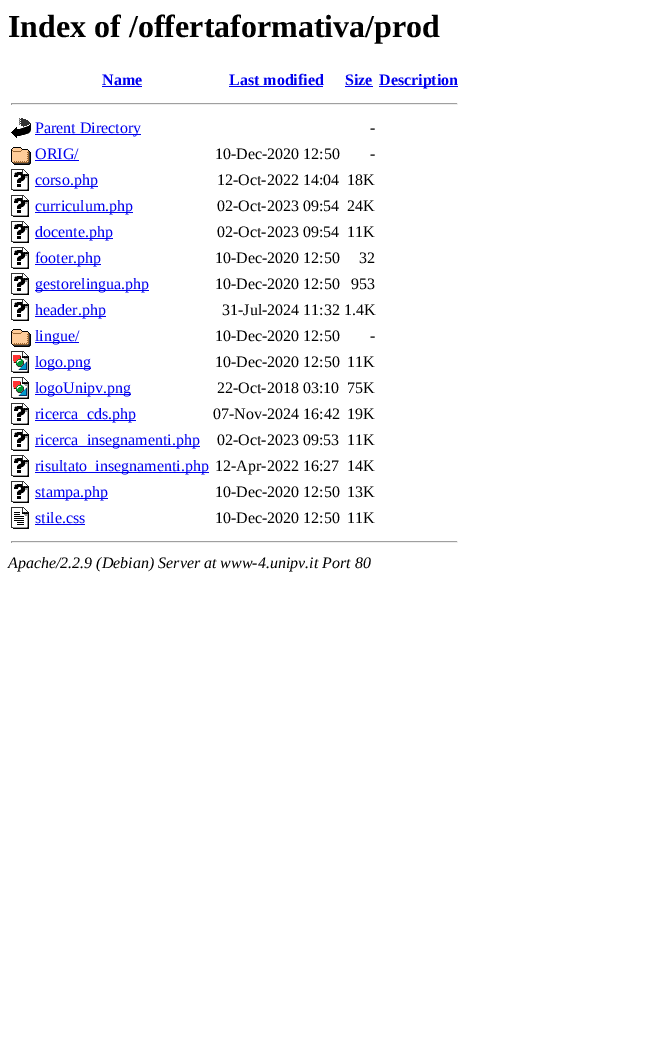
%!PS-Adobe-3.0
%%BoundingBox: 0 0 670 1055
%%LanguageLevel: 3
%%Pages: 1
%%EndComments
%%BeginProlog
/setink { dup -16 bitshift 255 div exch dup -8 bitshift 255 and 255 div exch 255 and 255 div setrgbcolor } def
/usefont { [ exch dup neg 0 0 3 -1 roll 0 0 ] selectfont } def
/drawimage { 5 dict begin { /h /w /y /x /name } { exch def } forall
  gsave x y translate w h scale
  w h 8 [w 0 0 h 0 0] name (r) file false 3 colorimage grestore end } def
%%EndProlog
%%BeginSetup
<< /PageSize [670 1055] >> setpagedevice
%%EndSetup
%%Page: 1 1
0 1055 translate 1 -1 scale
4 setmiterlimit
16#FFFFFF setink
0 0 670 1055 rectfill
/LiberationSerif-Bold 32 usefont
16#000000 setink
8 37 moveto (Index of /offertaformativa/prod) show
/LiberationSerif-Bold 16 usefont
16#0000EE setink
102 85 moveto (Name) show
102 86 40 1 rectfill
229 85 moveto (Last modified) show
229 86 94 1 rectfill
345 85 moveto (Size) show
345 86 28 1 rectfill
379 86 79 1 rectfill
379 85 moveto (Description) show
[
    [11 103 447 1 16#9F9F9F]
    [457 103 1 2 16#EEEEEE]
    [11 104 447 1 16#EEEEEE]
    [11 103 1 2 16#9F9F9F]
] { aload pop setink rectfill } forall
(img1.raw) 11 118 20 20 drawimage
16#0000EE setink
35 134 106 1 rectfill
/LiberationSerif-Regular 16 usefont
35 133 moveto (Parent Directory) show
16#000000 setink
370 133 moveto (-) show
(img2.raw) 11 147 20 18 drawimage
16#0000EE setink
35 159 moveto (ORIG/) show
35 160 44 1 rectfill
16#000000 setink
215 159 moveto (10-Dec-2020 12:50) show
370 159 moveto (-) show
(img3.raw) 11 169 18 22 drawimage
16#0000EE setink
35 186 63 1 rectfill
35 185 moveto (corso.php) show
16#000000 setink
217 185 moveto (12-Oct-2022 14:04) show
347 185 moveto (18K) show
(img3.raw) 11 195 18 22 drawimage
16#0000EE setink
35 212 98 1 rectfill
35 211 moveto (curriculum.php) show
16#000000 setink
217 211 moveto (02-Oct-2023 09:54) show
347 211 moveto (24K) show
(img3.raw) 11 221 18 22 drawimage
16#0000EE setink
35 238 78 1 rectfill
35 237 moveto (docente.php) show
16#000000 setink
217 237 moveto (02-Oct-2023 09:54) show
347 237 moveto (11K) show
(img3.raw) 11 247 18 22 drawimage
16#0000EE setink
35 264 66 1 rectfill
35 263 moveto (footer.php) show
16#000000 setink
215 263 moveto (10-Dec-2020 12:50) show
359 263 moveto (32) show
(img3.raw) 11 273 18 22 drawimage
16#0000EE setink
35 290 114 1 rectfill
35 289 moveto (gestorelingua.php) show
16#000000 setink
215 289 moveto (10-Dec-2020 12:50) show
351 289 moveto (953) show
(img3.raw) 11 299 18 22 drawimage
16#0000EE setink
35 316 71 1 rectfill
35 315 moveto (header.php) show
16#000000 setink
222 315 moveto (31-Jul-2024 11:32 1.4K) show
(img2.raw) 11 329 20 18 drawimage
16#0000EE setink
35 342 44 1 rectfill
35 341 moveto (lingue/) show
16#000000 setink
215 341 moveto (10-Dec-2020 12:50) show
370 341 moveto (-) show
(img4.raw) 11 351 18 22 drawimage
16#0000EE setink
35 368 56 1 rectfill
35 367 moveto (logo.png) show
16#000000 setink
215 367 moveto (10-Dec-2020 12:50) show
347 367 moveto (11K) show
(img4.raw) 11 377 18 22 drawimage
16#0000EE setink
35 394 96 1 rectfill
35 393 moveto (logoUnipv.png) show
16#000000 setink
217 393 moveto (22-Oct-2018 03:10) show
347 393 moveto (75K) show
(img3.raw) 11 403 18 22 drawimage
16#0000EE setink
35 420 101 1 rectfill
35 419 moveto (ricerca_cds.php) show
16#000000 setink
213 419 moveto (07-Nov-2024 16:42) show
347 419 moveto (19K) show
(img3.raw) 11 429 18 22 drawimage
16#0000EE setink
35 446 165 1 rectfill
35 445 moveto (ricerca_insegnamenti.php) show
16#000000 setink
217 445 moveto (02-Oct-2023 09:53) show
347 445 moveto (11K) show
(img3.raw) 11 455 18 22 drawimage
16#0000EE setink
35 472 174 1 rectfill
35 471 moveto (risultato_insegnamenti.php) show
16#000000 setink
215 471 moveto (12-Apr-2022 16:27) show
347 471 moveto (14K) show
(img3.raw) 11 481 18 22 drawimage
16#0000EE setink
35 498 73 1 rectfill
35 497 moveto (stampa.php) show
16#000000 setink
215 497 moveto (10-Dec-2020 12:50) show
347 497 moveto (13K) show
(img5.raw) 11 507 18 22 drawimage
16#0000EE setink
35 523 moveto (stile.css) show
35 524 50 1 rectfill
16#000000 setink
215 523 moveto (10-Dec-2020 12:50) show
347 523 moveto (11K) show
[
    [11 541 447 1 16#9F9F9F]
    [457 541 1 2 16#EEEEEE]
    [11 542 447 1 16#EEEEEE]
    [11 541 1 2 16#9F9F9F]
] { aload pop setink rectfill } forall
/LiberationSerif-Italic 16 usefont
16#000000 setink
8 568 moveto (Apache/2.2.9 \(Debian\) Server at www-4.unipv.it Port 80) show
showpage
%%EOF
